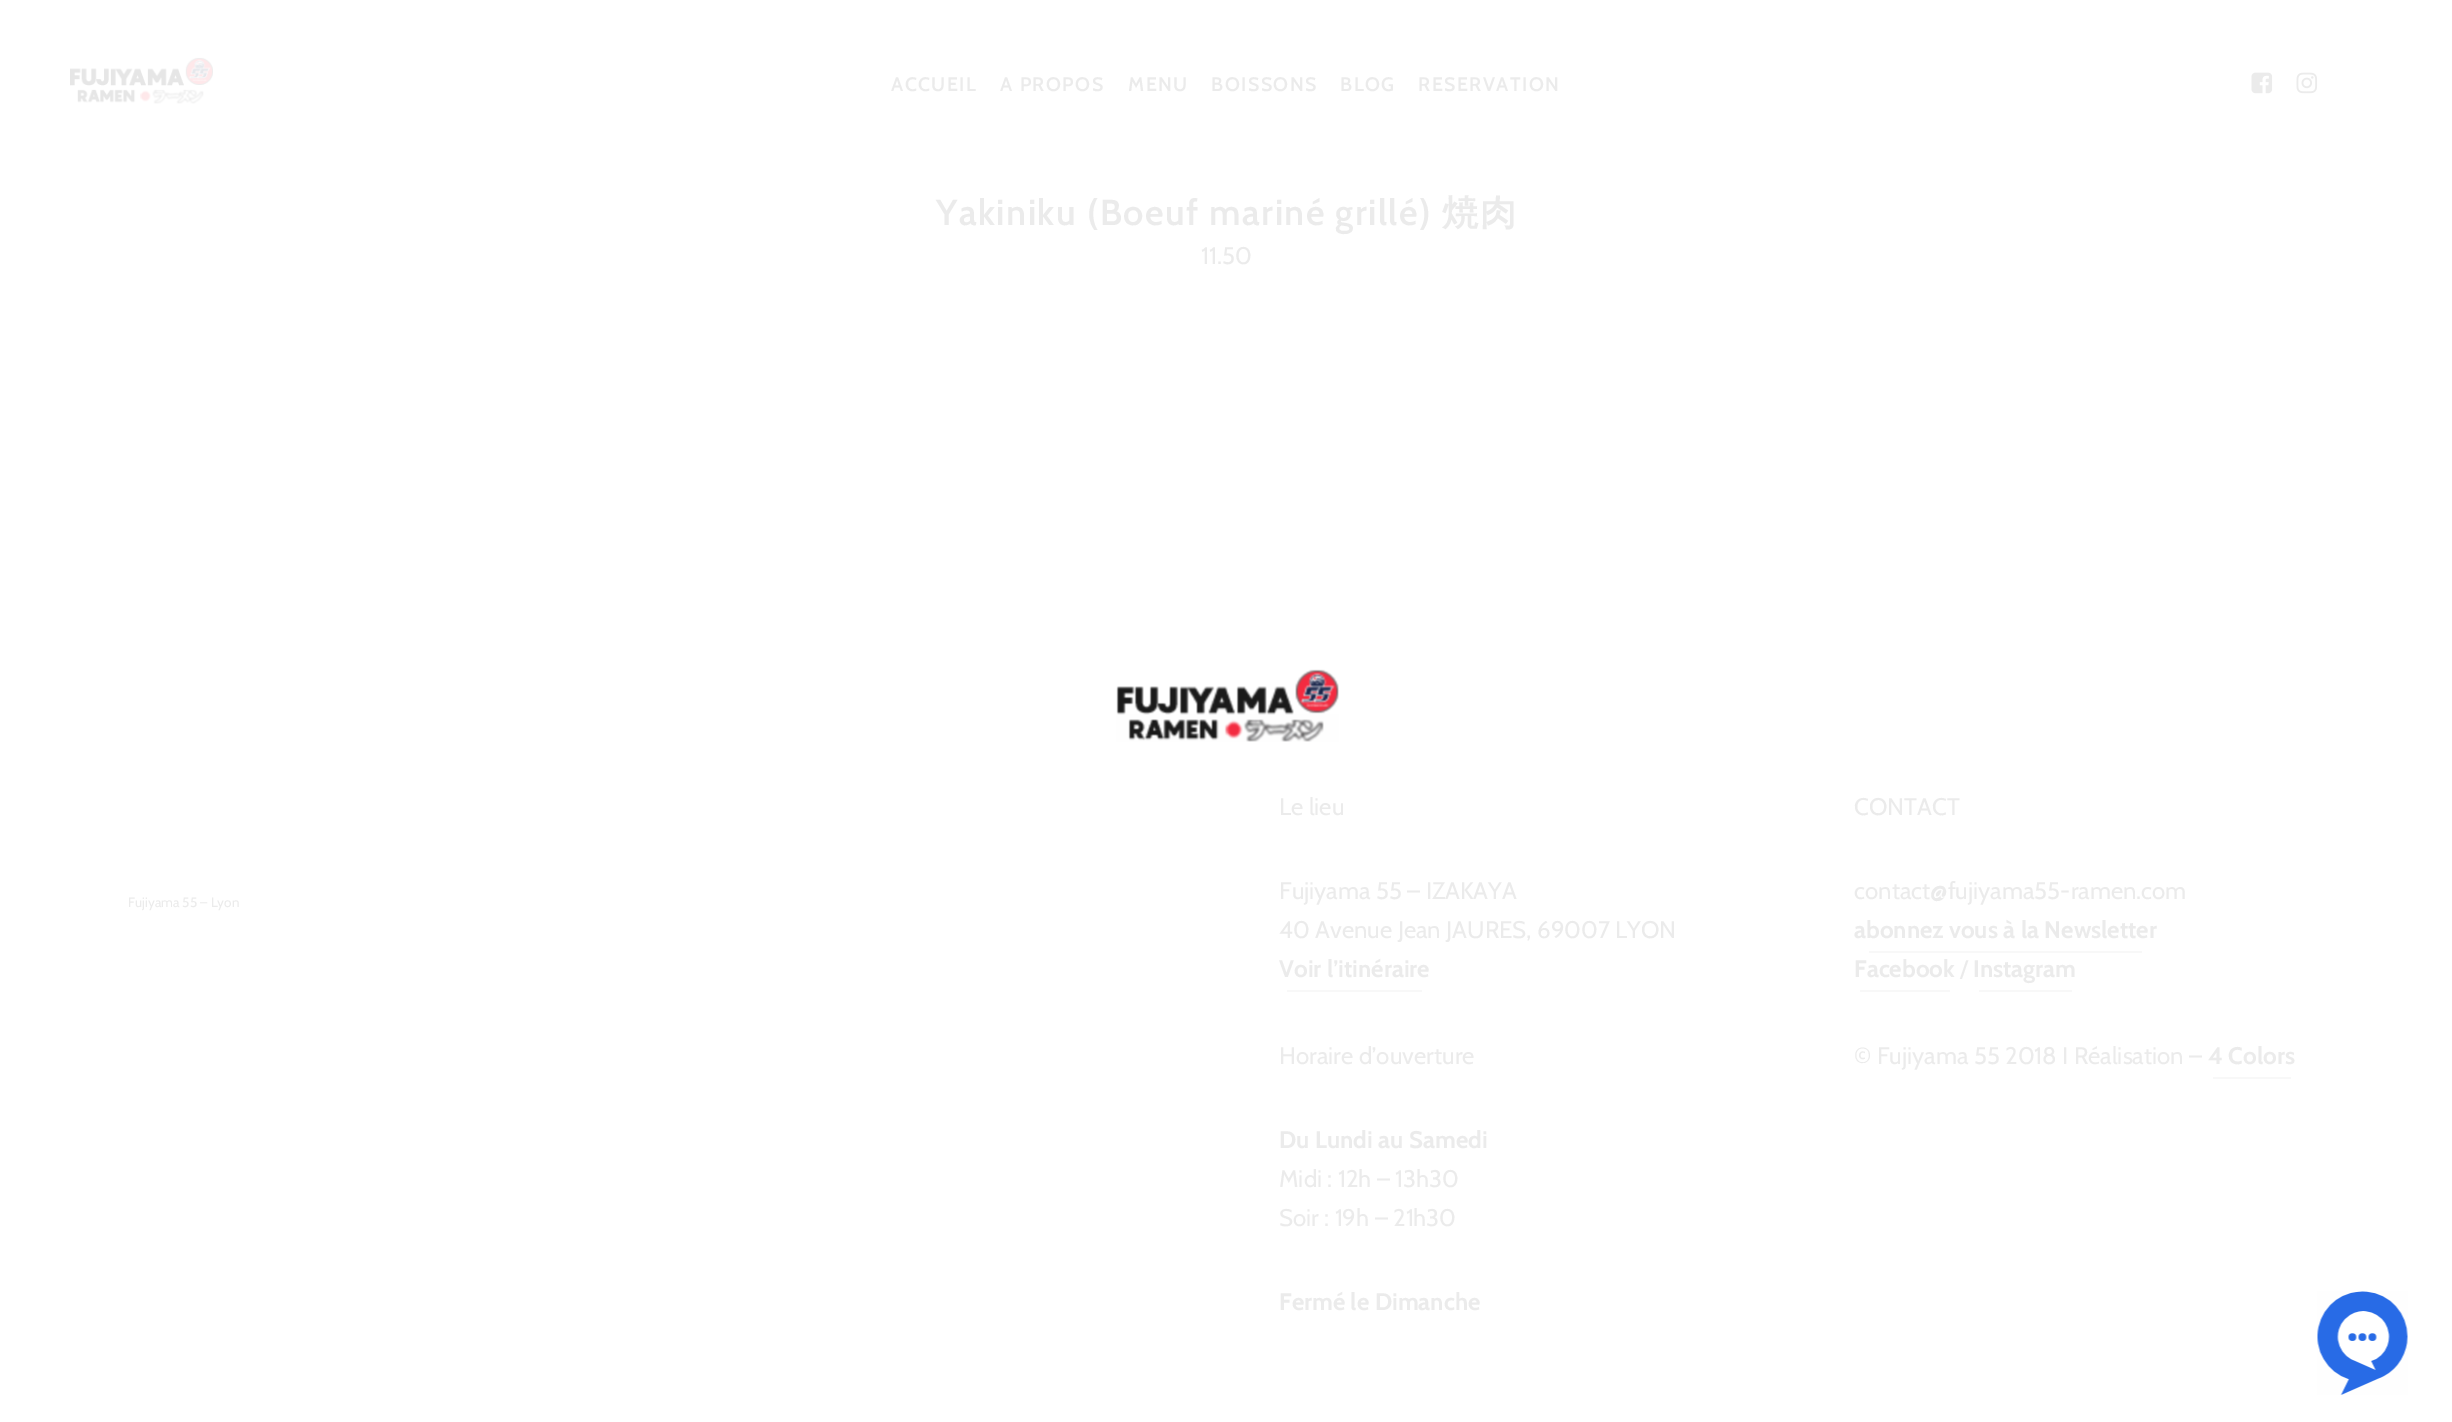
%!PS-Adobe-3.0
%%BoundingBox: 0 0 2452 1422
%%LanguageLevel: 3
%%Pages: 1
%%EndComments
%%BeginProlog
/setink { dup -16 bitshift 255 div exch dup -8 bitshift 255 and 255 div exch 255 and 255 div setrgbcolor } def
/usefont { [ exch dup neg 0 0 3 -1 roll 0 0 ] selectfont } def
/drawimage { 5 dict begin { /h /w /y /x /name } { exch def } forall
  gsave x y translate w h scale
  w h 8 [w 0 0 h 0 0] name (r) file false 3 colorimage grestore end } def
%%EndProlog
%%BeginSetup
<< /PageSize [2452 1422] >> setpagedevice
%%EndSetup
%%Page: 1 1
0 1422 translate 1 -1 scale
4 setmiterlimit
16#FFFFFF setink
0 0 2452 1422 rectfill
(img1.raw) 70 57 143 47 drawimage
/Cabin-SemiBold 19.5 usefont
16#EBEBEB setink
891 91 moveto 1.5 0 (ACCUEIL) ashow
1000 91 moveto 1.5 0 (A PROPOS) ashow
1128 91 moveto 1.5 0 (MENU) ashow
1211 91 moveto 1.5 0 (BOISSONS) ashow
1340 91 moveto 1.5 0 (BLOG) ashow
1418 91 moveto 1.5 0 (RESERVATION) ashow
(img2.raw) 2251 72 22 22 drawimage
(img3.raw) 2296 72 22 22 drawimage
/Cabin-SemiBold 36 usefont
936 225 moveto 1.5 0 (Yakiniku \(Boeuf mariné grillé\)) ashow
/WenQuanYiZenHei-Bold 36 usefont
1442 225 moveto 1.5 0 (焼肉) ashow
/Cabin-Regular 24 usefont
1201 264 moveto (11.50) show
/Cabin-Regular 13.5 usefont
128 907 moveto (Fujiyama 55 – Lyon) show
/Cabin-Regular 24 usefont
[
    [(Le lieu) 1279 815]
    [(Fujiyama 55 – IZAKAYA) 1279 899]
    [(40 Avenue Jean JAURES, 69007 LYON) 1279 938]
] { aload pop moveto show } forall
/Cabin-Bold 24 usefont
1279 977 moveto (Voir l’itinéraire) show
16#F8F8F8 setink
1287 990 135 2 rectfill
/Cabin-Regular 24 usefont
16#EBEBEB setink
1279 1064 moveto (Horaire d’ouverture) show
/Cabin-Bold 24 usefont
1279 1148 moveto (Du Lundi au Samedi) show
/Cabin-Regular 24 usefont
1279 1187 moveto (Midi : 12h – 13h30) show
1279 1226 moveto (Soir : 19h – 21h30) show
/Cabin-Bold 24 usefont
1279 1310 moveto (Fermé le Dimanche) show
/Cabin-Regular 24 usefont
1854 815 moveto (CONTACT) show
1854 899 moveto (contact@fujiyama55-ramen.com) show
/Cabin-Bold 24 usefont
1854 938 moveto (abonnez vous à la Newsletter) show
16#F8F8F8 setink
1869 951 273 2 rectfill
16#EBEBEB setink
1854 977 moveto (Facebook) show
16#F8F8F8 setink
1860 990 90 2 rectfill
/Cabin-Regular 24 usefont
16#EBEBEB setink
1960 977 moveto (/) show
/Cabin-Bold 24 usefont
1973 977 moveto (Instagram) show
16#F8F8F8 setink
1979 990 93 2 rectfill
/Cabin-Regular 24 usefont
16#EBEBEB setink
1854 1064 moveto (© Fujiyama 55 2018 I Réalisation –) show
/Cabin-Bold 24 usefont
2208 1064 moveto (4 Colors) show
16#F8F8F8 setink
2213 1077 78 2 rectfill
(img4.raw) 1116 669 223 73 drawimage
(img5.raw) 2317 1291 91 104 drawimage
showpage
%%EOF
